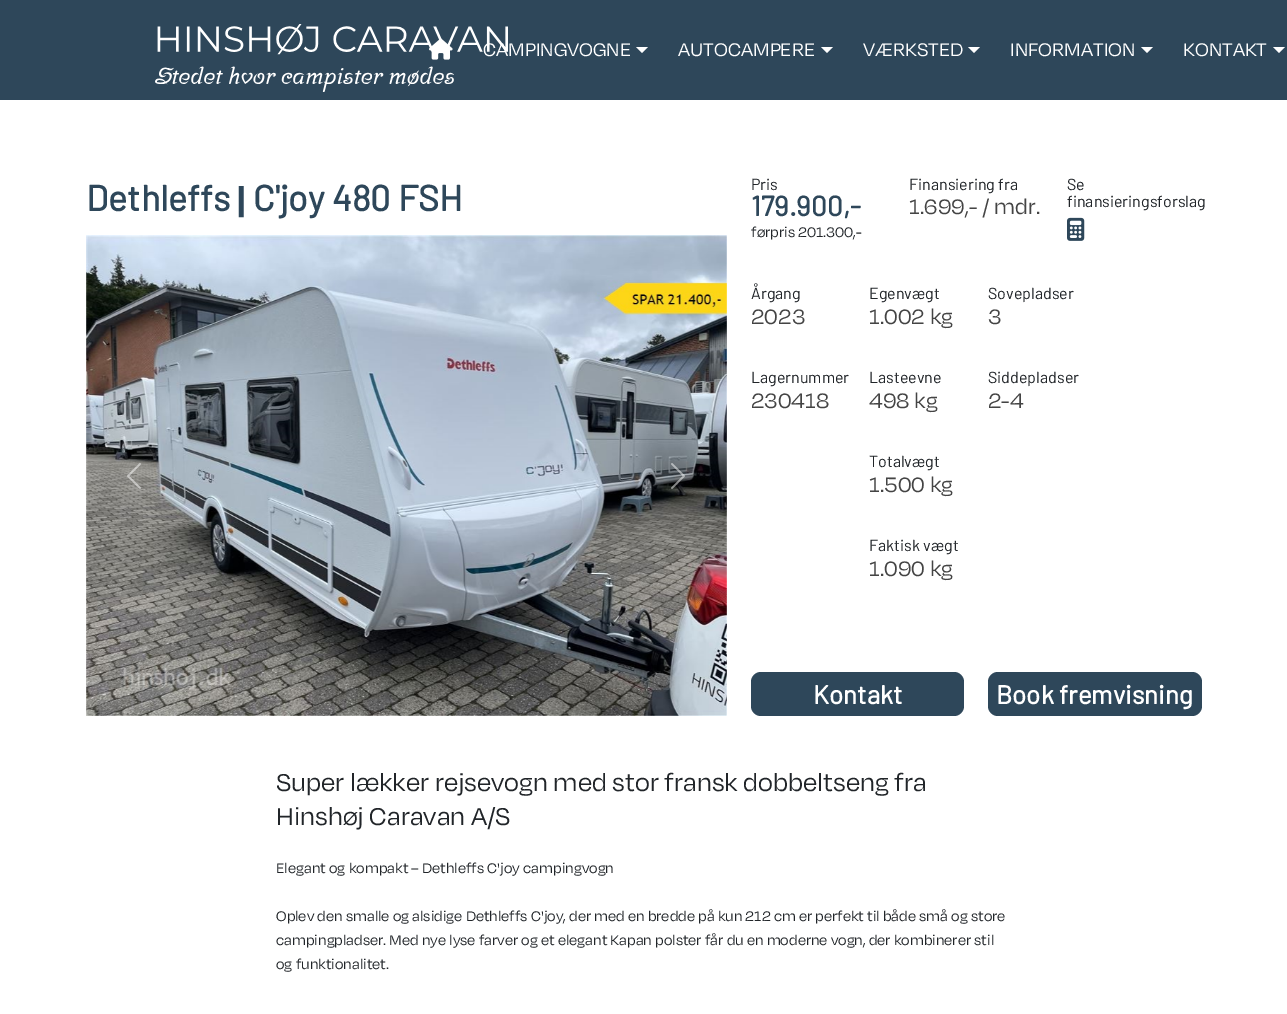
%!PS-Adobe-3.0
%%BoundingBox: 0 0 1287 1014
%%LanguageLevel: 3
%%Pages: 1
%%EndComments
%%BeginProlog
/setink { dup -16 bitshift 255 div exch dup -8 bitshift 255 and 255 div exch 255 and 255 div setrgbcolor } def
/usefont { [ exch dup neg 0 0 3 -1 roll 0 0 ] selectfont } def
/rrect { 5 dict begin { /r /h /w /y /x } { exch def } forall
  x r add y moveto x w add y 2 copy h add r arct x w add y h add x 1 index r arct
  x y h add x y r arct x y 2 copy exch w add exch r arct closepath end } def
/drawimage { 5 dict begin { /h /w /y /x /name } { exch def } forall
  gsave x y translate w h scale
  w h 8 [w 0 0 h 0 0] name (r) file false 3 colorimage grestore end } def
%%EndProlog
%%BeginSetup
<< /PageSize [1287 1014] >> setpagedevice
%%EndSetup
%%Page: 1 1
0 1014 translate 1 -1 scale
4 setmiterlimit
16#FFFFFF setink
0 0 1287 1014 rectfill
16#2E475A setink
0 0 1287 100 rectfill
(img1.raw) 155 24 353 68 drawimage
(img2.raw) 429 38 24 22 drawimage
/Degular-Regular 21 usefont
16#FFFFFF setink
483 56 moveto (CAMPINGVOGNE) show
636 47 moveto 648 47 lineto 642 53 lineto closepath fill
678 56 moveto (AUTOCAMPERE) show
821 47 moveto 833 47 lineto 827 53 lineto closepath fill
863 56 moveto (VÆRKSTED) show
968 47 moveto 980 47 lineto 974 53 lineto closepath fill
1010 56 moveto (INFORMATION) show
1141 47 moveto 1153 47 lineto 1147 53 lineto closepath fill
1183 56 moveto (KONTAKT) show
1273 47 moveto 1285 47 lineto 1279 53 lineto closepath fill
/Barlow-Bold 36 usefont
16#2E475A setink
86 211 moveto (Dethleffs) show
/Degular-Bold 36 usefont
237 211 moveto (|) show
/Barlow-Bold 36 usefont
253 211 moveto (C'joy 480 FSH) show
(img3.raw) 86 235 641 481 drawimage
(img4.raw) 127 463 14 26 drawimage
(img5.raw) 671 463 14 26 drawimage
/Barlow-Regular 16 usefont
16#212529 setink
751 190 moveto (Pris) show
/Barlow-Bold 28 usefont
16#2E475A setink
751 216 moveto (179.900,-) show
/Degular-Regular 16 usefont
16#212529 setink
751 237 moveto (førpris 201.300,-) show
/Barlow-Regular 16 usefont
909 190 moveto (Finansiering fra) show
/Degular-Regular 24 usefont
16#444444 setink
909 214 moveto (1.699,- / mdr.) show
/Barlow-Regular 16 usefont
16#212529 setink
1067 190 moveto (Se) show
1067 207 moveto (finansieringsforslag) show
(img6.raw) 1067 217 18 24 drawimage
751 299 moveto (Årgang) show
/Degular-Regular 24 usefont
16#444444 setink
751 324 moveto (2023) show
/Barlow-Regular 16 usefont
16#212529 setink
751 383 moveto (Lagernummer) show
/Degular-Regular 24 usefont
16#444444 setink
751 408 moveto (230418) show
/Barlow-Regular 16 usefont
16#212529 setink
869 299 moveto (Egenvægt) show
/Degular-Regular 24 usefont
16#444444 setink
869 324 moveto (1.002 kg) show
/Barlow-Regular 16 usefont
16#212529 setink
869 383 moveto (Lasteevne) show
/Degular-Regular 24 usefont
16#444444 setink
869 408 moveto (498 kg) show
/Barlow-Regular 16 usefont
16#212529 setink
869 467 moveto (Totalvægt) show
/Degular-Regular 24 usefont
16#444444 setink
869 492 moveto (1.500 kg) show
/Barlow-Regular 16 usefont
16#212529 setink
869 551 moveto (Faktisk vægt) show
/Degular-Regular 24 usefont
16#444444 setink
869 576 moveto (1.090 kg) show
/Barlow-Regular 16 usefont
16#212529 setink
988 299 moveto (Sovepladser) show
/Degular-Regular 24 usefont
16#444444 setink
988 324 moveto (3) show
/Barlow-Regular 16 usefont
16#212529 setink
988 383 moveto (Siddepladser) show
/Degular-Regular 24 usefont
16#444444 setink
988 408 moveto (2-4) show
16#2E475A setink
751 672 213 44 10 rrect fill
/Barlow-Bold 26 usefont
16#FFFFFF setink
813 704 moveto (Kontakt) show
16#2E475A setink
988 672 214 44 10 rrect fill
16#FFFFFF setink
996 704 moveto (Book fremvisning) show
/Degular-Regular 28 usefont
16#212529 setink
276 791 moveto (Super lækker rejsevogn med stor fransk dobbeltseng fra) show
276 825 moveto (Hinshøj Caravan A/S) show
/Degular-Regular 16 usefont
[
    [(Elegant og kompakt – Dethleffs C'joy campingvogn) 276 873]
    [(Oplev den smalle og alsidige Dethleffs C'joy, der med en bredde på kun 212 cm er perfekt til både små og store) 276 921]
    [(campingpladser. Med nye lyse farver og et elegant Kapan polster får du en moderne vogn, der kombinerer stil) 276 945]
    [(og funktionalitet.) 276 969]
] { aload pop moveto show } forall
showpage
%%EOF
